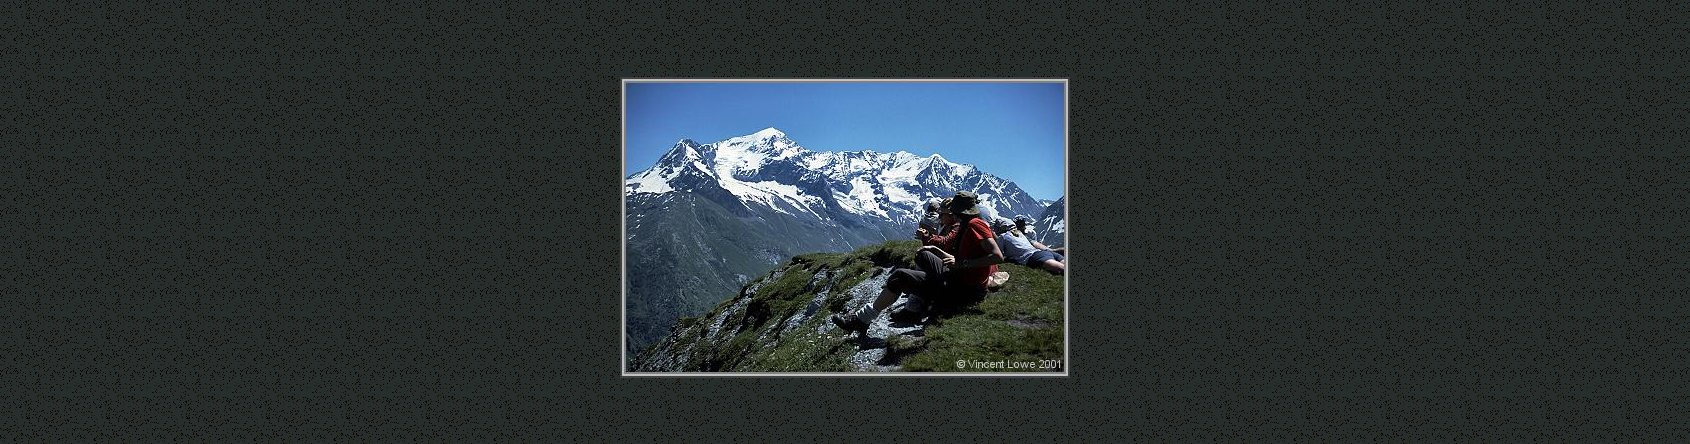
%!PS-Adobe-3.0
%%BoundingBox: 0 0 1690 444
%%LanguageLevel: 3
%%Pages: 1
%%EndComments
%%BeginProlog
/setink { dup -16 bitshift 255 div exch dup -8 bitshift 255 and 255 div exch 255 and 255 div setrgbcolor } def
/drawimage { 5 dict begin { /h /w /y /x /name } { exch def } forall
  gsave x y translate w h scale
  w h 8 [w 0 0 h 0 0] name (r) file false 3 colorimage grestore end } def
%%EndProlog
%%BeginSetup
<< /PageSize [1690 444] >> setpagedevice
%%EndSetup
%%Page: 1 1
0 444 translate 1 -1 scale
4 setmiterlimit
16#FFFFFF setink
0 0 1690 444 rectfill
(img1.raw) 0 0 1690 444 drawimage
(img2.raw) 620 77 450 301 drawimage
showpage
%%EOF
